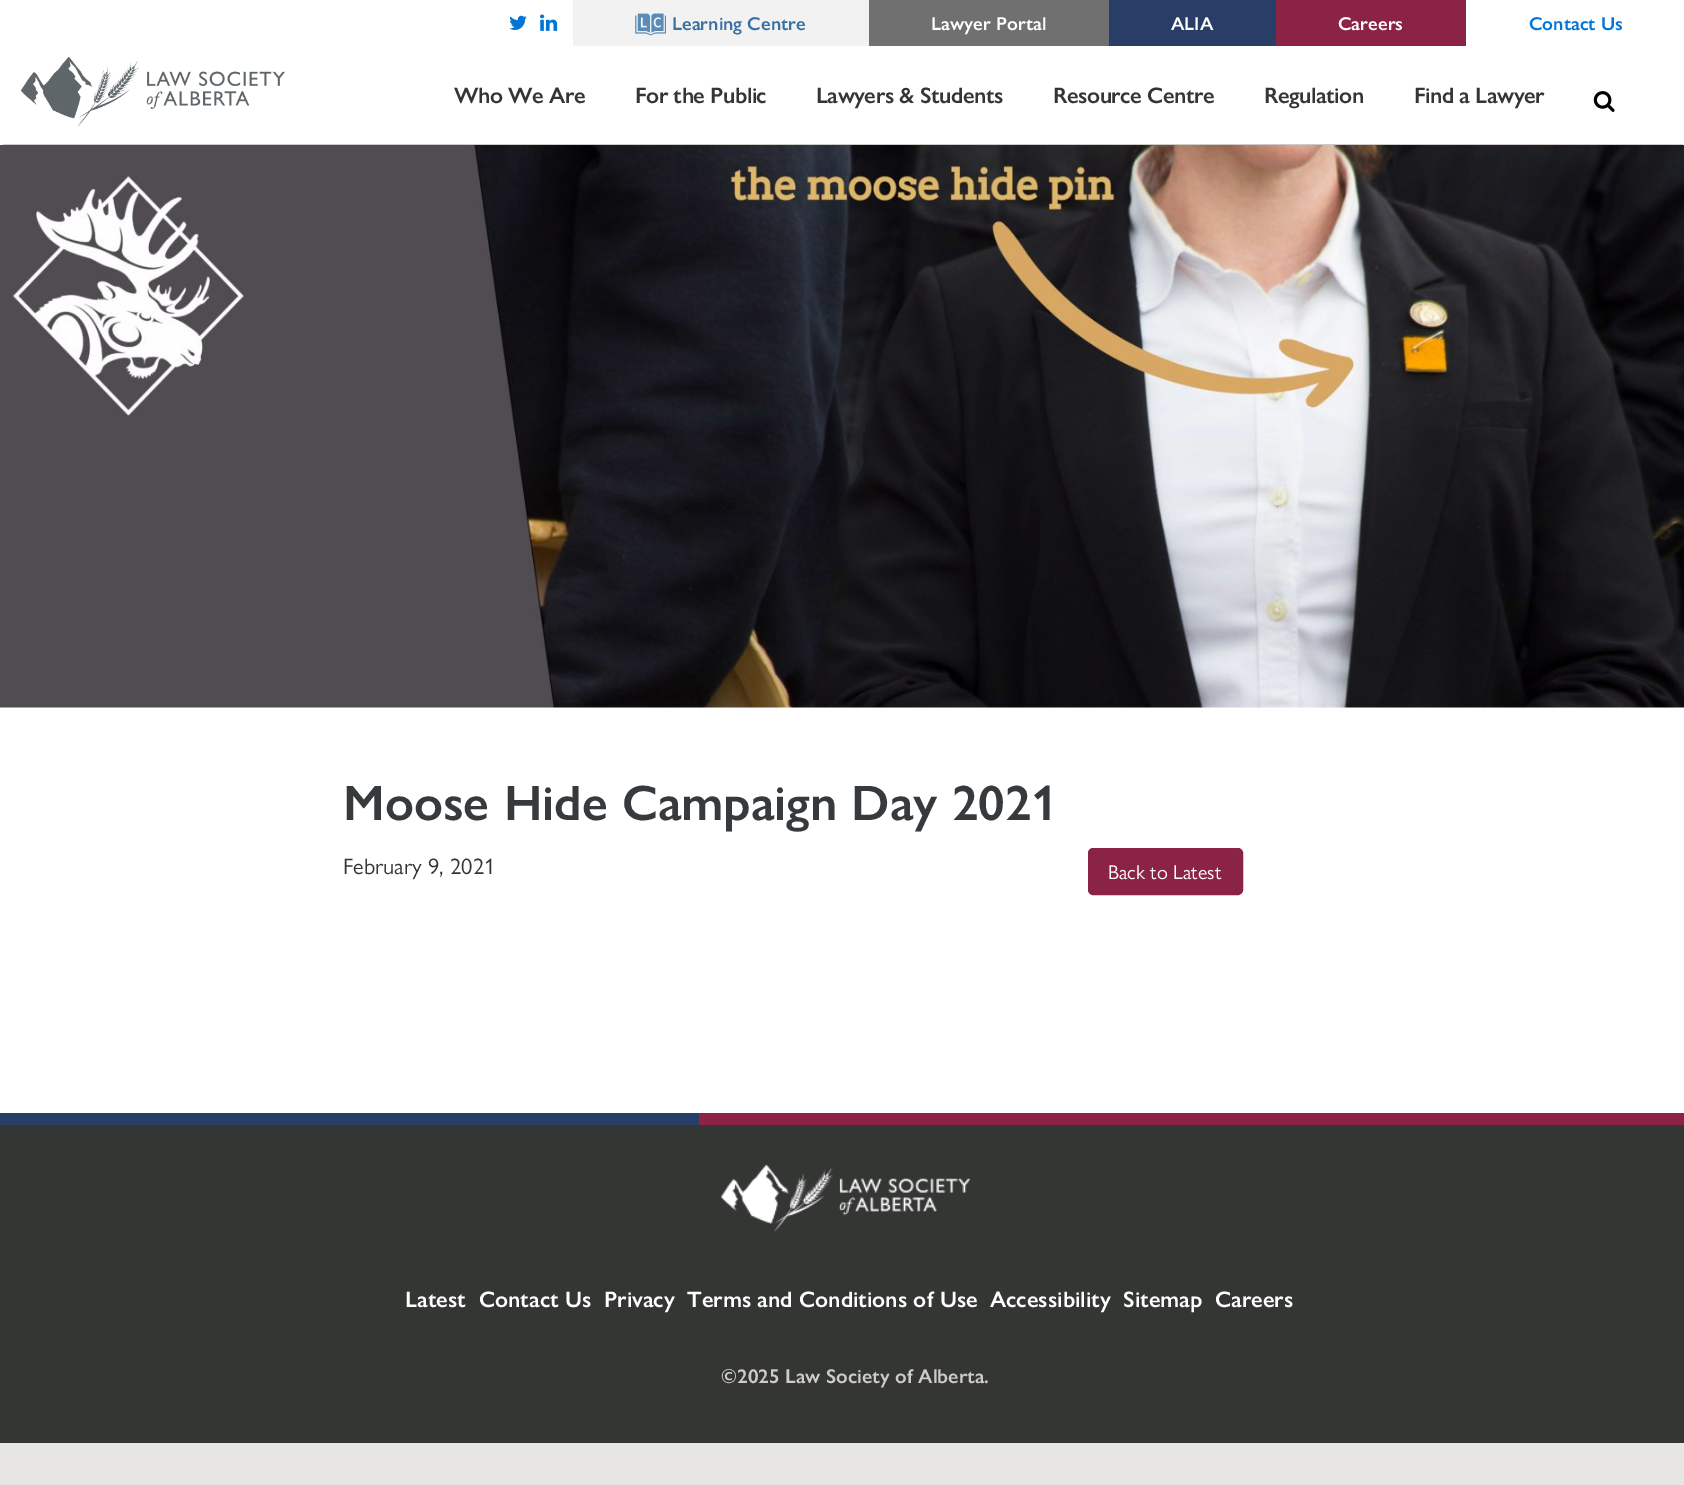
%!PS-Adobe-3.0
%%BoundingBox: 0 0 1684 1485
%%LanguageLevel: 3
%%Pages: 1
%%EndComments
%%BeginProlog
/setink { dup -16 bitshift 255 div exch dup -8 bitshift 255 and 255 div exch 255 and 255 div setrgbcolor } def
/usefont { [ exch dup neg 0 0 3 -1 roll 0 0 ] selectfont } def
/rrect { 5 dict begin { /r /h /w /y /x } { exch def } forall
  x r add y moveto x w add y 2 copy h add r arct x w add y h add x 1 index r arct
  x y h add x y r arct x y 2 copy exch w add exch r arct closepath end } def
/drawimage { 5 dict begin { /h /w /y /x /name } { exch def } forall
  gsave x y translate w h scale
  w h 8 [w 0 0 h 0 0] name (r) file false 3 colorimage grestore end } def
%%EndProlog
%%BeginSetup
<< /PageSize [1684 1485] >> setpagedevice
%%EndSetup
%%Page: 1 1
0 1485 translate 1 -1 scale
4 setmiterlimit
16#E7E6E4 setink
0 0 1684 1485 rectfill
16#FFFFFF setink
0 0 1684 1113 rectfill
(img1.raw) 509 15 18 15 drawimage
(img2.raw) 540 14 18 17 drawimage
16#F2F2F2 setink
573 0 296 46 rectfill
(img3.raw) 635 13 31 23 drawimage
/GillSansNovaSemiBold-SemiBold 18.75 usefont
16#3971A2 setink
672 30 moveto (Learning Centre) show
16#707070 setink
869 0 240 46 rectfill
16#FFFFFF setink
931 30 moveto (Lawyer Portal) show
16#283E67 setink
1109 0 167 46 rectfill
16#FFFFFF setink
1171 30 moveto (ALIA) show
16#8B2346 setink
1276 0 190 46 rectfill
16#FFFFFF setink
1338 30 moveto (Careers) show
16#0275D8 setink
1529 30 moveto (Contact Us) show
16#CECCC8 setink
3 144 1680 1 rectfill
(img4.raw) 20 57 265 70 drawimage
/GillSansNovaSemiBold-SemiBold 22.5 usefont
16#343634 setink
454 103 moveto -0.5 0 (Who We Are) ashow
635 103 moveto -0.5 0 (For the Public) ashow
816 103 moveto -0.5 0 (Lawyers & Students) ashow
1053 103 moveto -0.5 0 (Resource Centre) ashow
1264 103 moveto -0.5 0 (Regulation) ashow
1414 103 moveto -0.5 0 (Find a Lawyer) ashow
(img5.raw) 1593 91 22 21 drawimage
(img6.raw) 0 145 1684 563 drawimage
/GillSansNovaSemiBold-SemiBold 50 usefont
16#373A3C setink
343 820 moveto (Moose Hide Campaign Day 2021) show
/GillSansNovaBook-Regular 22.5 usefont
16#343634 setink
343 874 moveto (February 9, 2021) show
16#8B2346 setink
1088.5 848.5 154 46 4.5 rrect gsave fill grestore
stroke
/GillSansNovaBook-Regular 20 usefont
16#FFFFFF setink
1108 879 moveto (Back to Latest) show
[
    [0 1125 1684 318 16#343634]
    [0 1113 699 12 16#283E67]
    [699 1113 985 12 16#8B2346]
] { aload pop setink rectfill } forall
(img7.raw) 721 1165 249 67 drawimage
/GillSansNovaSemiBold-SemiBold 22.5 usefont
16#FFFFFF setink
[
    [(Latest) 405 1307]
    [(Contact Us) 479 1307]
    [(Privacy) 604 1307]
    [(Terms and Conditions of Use) 687 1307]
    [(Accessibility) 990 1307]
    [(Sitemap) 1123 1307]
    [(Careers) 1215 1307]
] { aload pop moveto show } forall
/GillSansNovaSemiBold-SemiBold 20 usefont
16#CECCC8 setink
721 1383 moveto (©2025 Law Society of Alberta.) show
showpage
%%EOF
